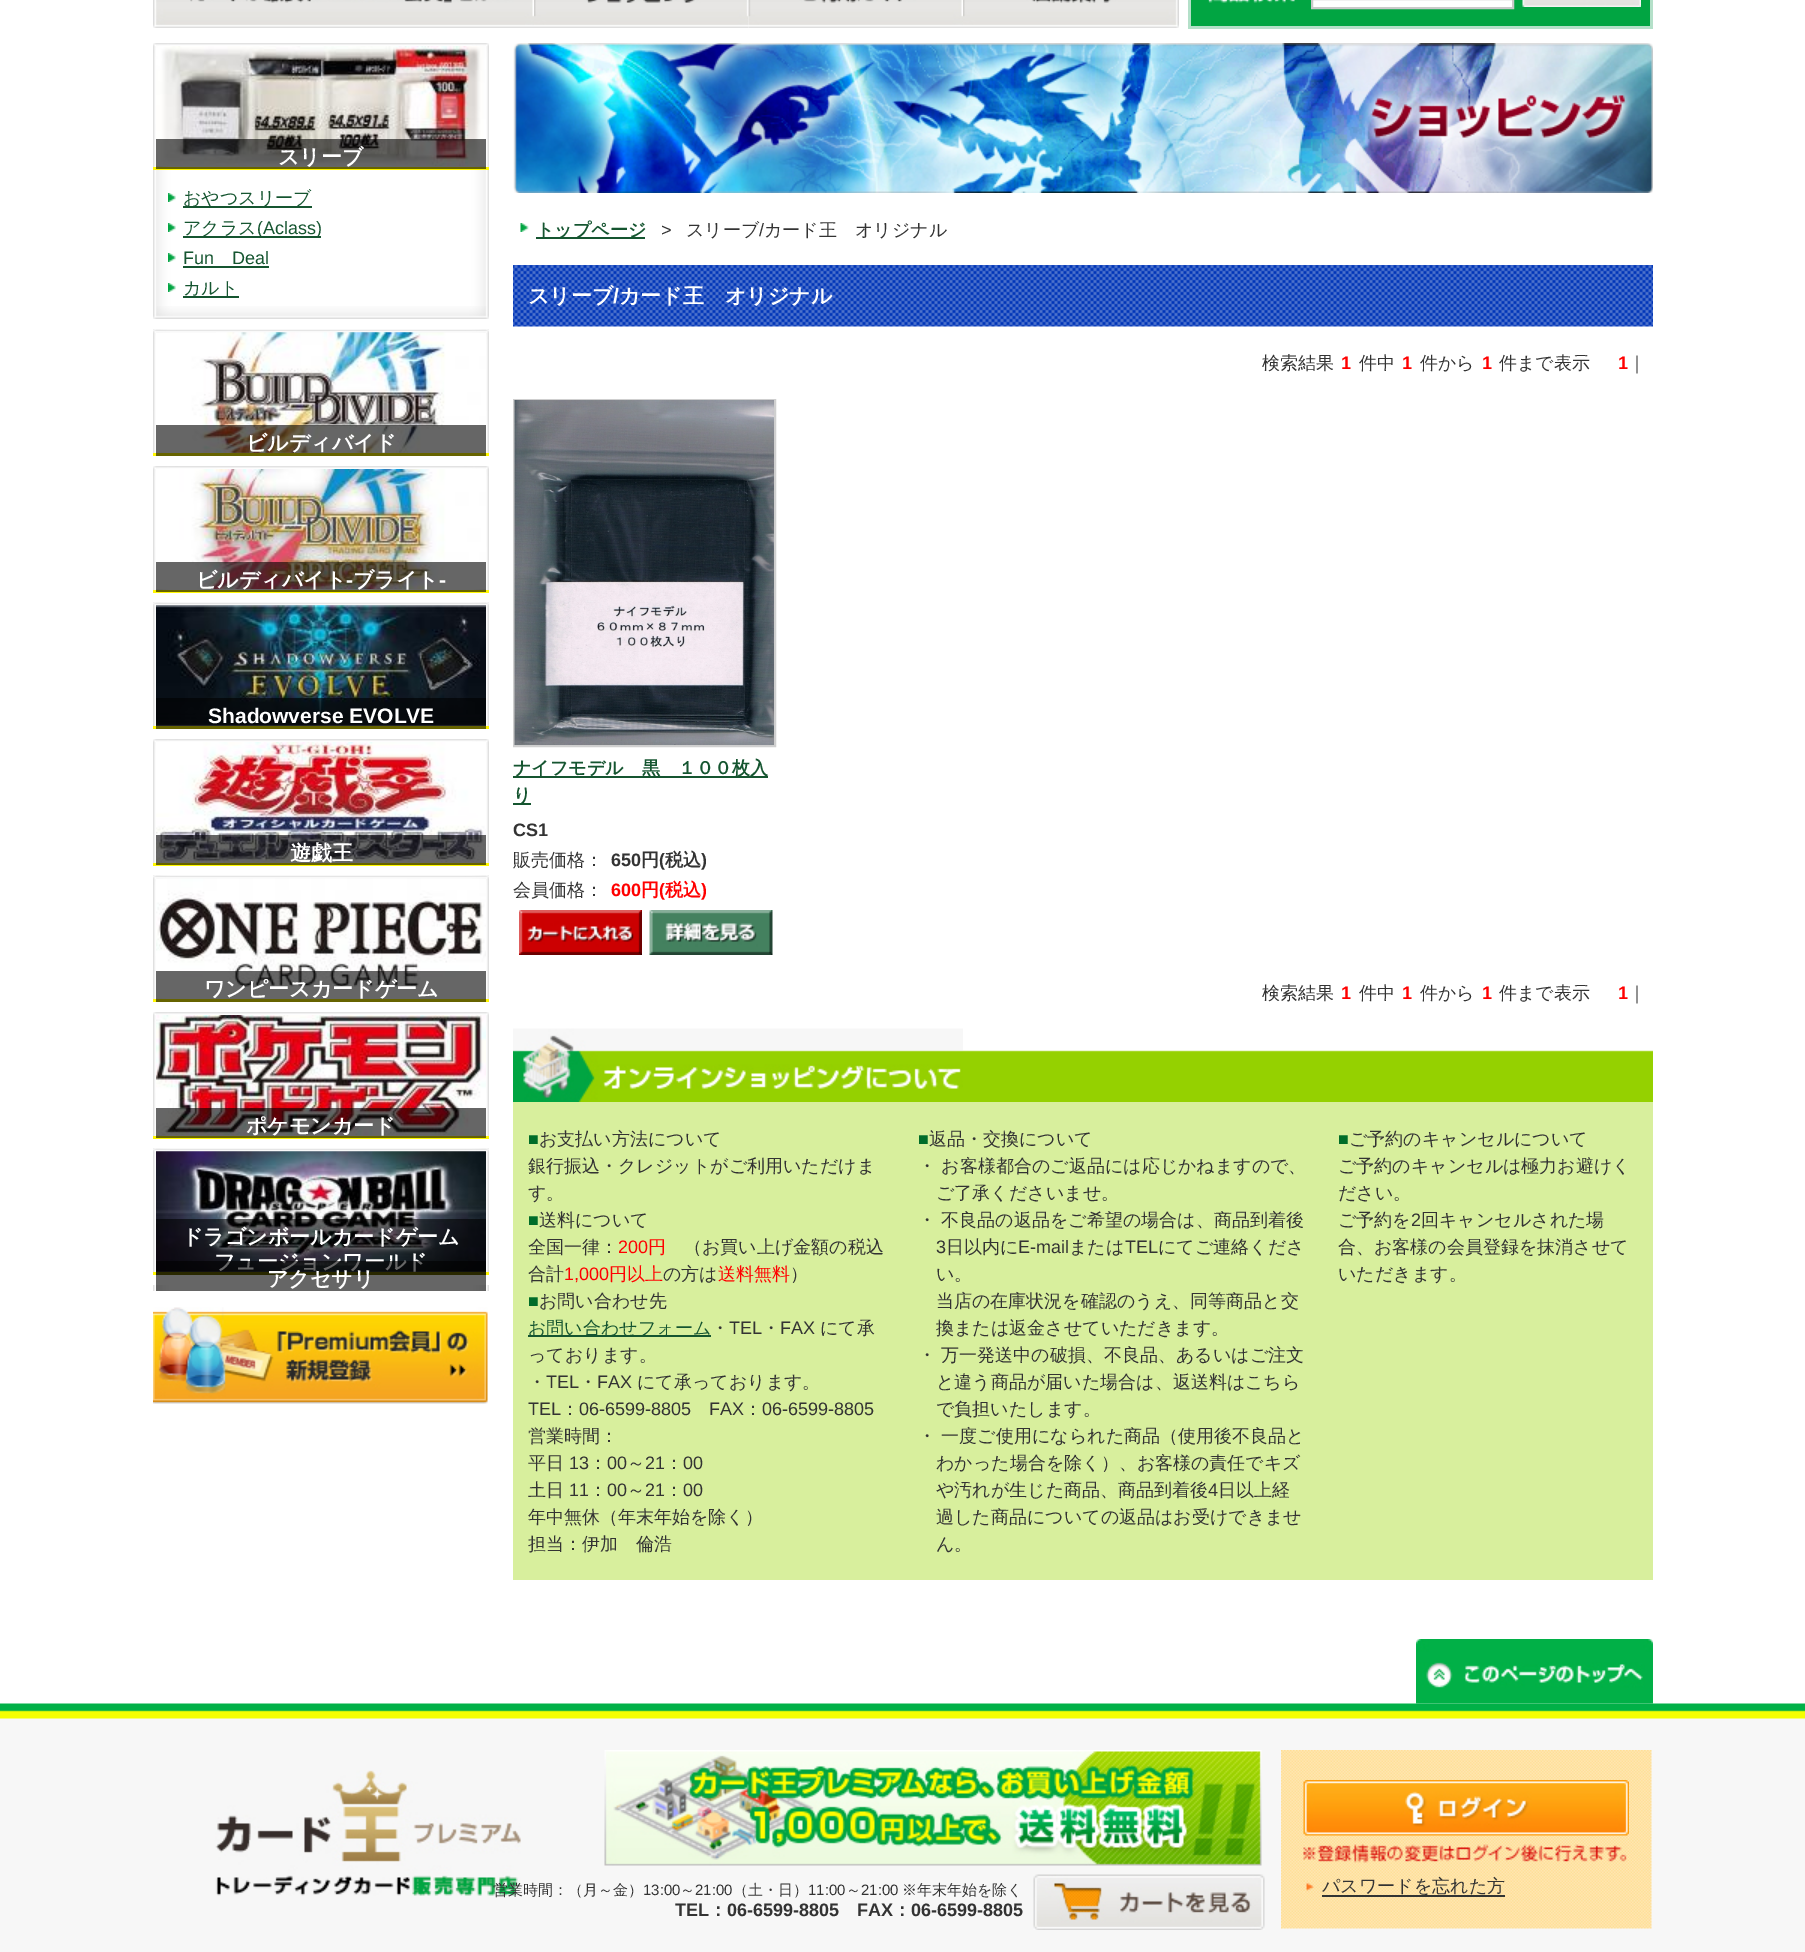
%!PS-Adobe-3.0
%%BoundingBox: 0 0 1805 1952
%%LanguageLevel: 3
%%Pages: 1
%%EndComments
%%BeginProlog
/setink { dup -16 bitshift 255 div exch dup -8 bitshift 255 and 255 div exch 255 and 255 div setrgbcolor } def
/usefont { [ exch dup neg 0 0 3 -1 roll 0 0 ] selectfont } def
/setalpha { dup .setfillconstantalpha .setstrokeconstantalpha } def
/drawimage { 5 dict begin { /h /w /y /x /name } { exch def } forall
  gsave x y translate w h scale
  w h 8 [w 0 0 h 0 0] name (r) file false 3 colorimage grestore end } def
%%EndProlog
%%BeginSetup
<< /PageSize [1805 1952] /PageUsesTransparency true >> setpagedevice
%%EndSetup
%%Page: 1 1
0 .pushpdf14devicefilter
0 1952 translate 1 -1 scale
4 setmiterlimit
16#FFFFFF setink
0 0 1805 1952 rectfill
(img1.raw) 153 0 381 28 drawimage
(img2.raw) 534 0 215 28 drawimage
(img3.raw) 748 0 215 28 drawimage
(img4.raw) 963 0 216 28 drawimage
[
    [1191 0 459 26 16#01A542]
    [1650 0 3 29 16#B4E0C9]
    [1188 26 465 3 16#B4E0C9]
    [1188 0 3 29 16#B4E0C9]
] { aload pop setink rectfill } forall
(img5.raw) 1208 0 87 3 drawimage
16#FFFFFF setink
1312 -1 moveto 1513 -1 lineto 1513 8 lineto 1312 8 lineto closepath gsave fill grestore
16#C9C9C9 setink
2 setlinewidth
stroke
(img6.raw) 1522 0 119 7 drawimage
(img7.raw) 153 124 336 182 drawimage
(img8.raw) 153 43 336 123 drawimage
16#FFF701 setink
153 167 336 3 rectfill
0.6 setalpha
16#000000 setink
156 139 330 30 rectfill
/WenQuanYiZenHei-Bold 21 usefont
1 setalpha
16#FFFFFF setink
278 164 moveto (スリーブ) show
(img9.raw) 153 306 336 13 drawimage
(img10.raw) 168 193 8 9 drawimage
16#155530 setink
183 206 129 2 rectfill
/WenQuanYiZenHei-Medium 18 usefont
183 204 moveto (おやつスリーブ) show
(img10.raw) 168 223 8 9 drawimage
183 236 138 2 rectfill
183 234 moveto (アクラス) show
/LiberationSans-Regular 18 usefont
257 234 moveto (\(Aclass\)) show
(img10.raw) 168 253 8 9 drawimage
183 264 moveto (Fun) show
183 266 86 2 rectfill
232 264 moveto (Deal) show
(img10.raw) 168 283 8 9 drawimage
183 296 56 2 rectfill
/WenQuanYiZenHei-Medium 18 usefont
183 294 moveto (カルト) show
(img11.raw) 153 329 336 124 drawimage
(img12.raw) 153 329 336 124 drawimage
(img13.raw) 216 332 199 121 drawimage
16#FFF701 setink
153 453 336 3 rectfill
0.6 setalpha
16#000000 setink
156 425 330 31 rectfill
/WenQuanYiZenHei-Bold 21 usefont
1 setalpha
16#FFFFFF setink
246 450 moveto (ビルディバイド) show
(img14.raw) 153 547 336 43 drawimage
(img15.raw) 153 466 336 123 drawimage
16#FFF701 setink
153 590 336 3 rectfill
0.6 setalpha
16#000000 setink
156 562 330 30 rectfill
1 setalpha
16#FFFFFF setink
196 587 moveto (ビルディバイト) show
/LiberationSans-Bold 21 usefont
346 587 moveto (-) show
/WenQuanYiZenHei-Bold 21 usefont
353 587 moveto (ブライト) show
/LiberationSans-Bold 21 usefont
439 587 moveto (-) show
(img11.raw) 153 602 336 124 drawimage
(img16.raw) 153 602 336 124 drawimage
(img17.raw) 156 605 330 121 drawimage
16#FFF701 setink
153 726 336 3 rectfill
0.6 setalpha
16#000000 setink
156 698 330 31 rectfill
1 setalpha
16#FFFFFF setink
208 723 moveto (Shadowverse EVOLVE) show
(img14.raw) 153 820 336 43 drawimage
(img18.raw) 153 739 336 123 drawimage
16#FFF701 setink
153 863 336 3 rectfill
0.6 setalpha
16#000000 setink
156 835 330 30 rectfill
/WenQuanYiZenHei-Bold 21 usefont
1 setalpha
16#FFFFFF setink
290 860 moveto (遊戯王) show
(img11.raw) 153 875 336 124 drawimage
(img19.raw) 153 875 336 124 drawimage
16#FFF701 setink
153 999 336 3 rectfill
0.6 setalpha
16#000000 setink
156 971 330 31 rectfill
1 setalpha
16#FFFFFF setink
204 996 moveto (ワンピースカードゲーム) show
(img14.raw) 153 1093 336 43 drawimage
(img20.raw) 153 1012 336 123 drawimage
16#FFF701 setink
153 1136 336 3 rectfill
0.6 setalpha
16#000000 setink
156 1108 330 30 rectfill
1 setalpha
16#FFFFFF setink
246 1133 moveto (ポケモンカード) show
(img11.raw) 153 1148 336 124 drawimage
(img21.raw) 153 1148 336 124 drawimage
(img22.raw) 156 1151 330 121 drawimage
16#FFF701 setink
153 1272 336 3 rectfill
0.6 setalpha
16#000000 setink
156 1219 330 56 rectfill
1 setalpha
16#FFFFFF setink
182 1244 moveto (ドラゴンボールカードゲーム) show
214 1269 moveto (フュージョンワールド) show
(img23.raw) 153 1285 336 6 drawimage
0.6 setalpha
16#000000 setink
156 1261 330 30 rectfill
1 setalpha
16#FFFFFF setink
267 1286 moveto (アクセサリ) show
(img24.raw) 153 1307 335 97 drawimage
(img25.raw) 513 43 1140 150 drawimage
(img26.raw) 520 223 9 9 drawimage
16#155530 setink
536 237 109 2 rectfill
/WenQuanYiZenHei-Bold 18 usefont
536 236 moveto (トップページ) show
/LiberationSans-Regular 18 usefont
16#333333 setink
661 236 moveto (>) show
/WenQuanYiZenHei-Medium 18 usefont
686 236 moveto (スリーブ) show
/LiberationSans-Regular 18 usefont
759 236 moveto (/) show
/WenQuanYiZenHei-Medium 18 usefont
764 236 moveto (カード王　オリジナル) show
(img27.raw) 513 265 1140 62 drawimage
/WenQuanYiZenHei-Bold 21 usefont
16#FFFFFF setink
528 303 moveto (スリーブ) show
/LiberationSans-Bold 21 usefont
613 303 moveto (/) show
/WenQuanYiZenHei-Bold 21 usefont
619 303 moveto (カード王　オリジナル) show
/WenQuanYiZenHei-Medium 18 usefont
16#333333 setink
1262 369 moveto (検索結果) show
/LiberationSans-Bold 18 usefont
16#FF0000 setink
1341 369 moveto (1) show
/WenQuanYiZenHei-Medium 18 usefont
16#333333 setink
1359 369 moveto (件中) show
/LiberationSans-Bold 18 usefont
16#FF0000 setink
1402 369 moveto (1) show
/WenQuanYiZenHei-Medium 18 usefont
16#333333 setink
1420 369 moveto (件から) show
/LiberationSans-Bold 18 usefont
16#FF0000 setink
1482 369 moveto (1) show
/WenQuanYiZenHei-Medium 18 usefont
16#333333 setink
1499 369 moveto (件まで表示) show
/LiberationSans-Bold 18 usefont
16#FF0000 setink
1618 369 moveto (1) show
/WenQuanYiZenHei-Medium 18 usefont
16#333333 setink
1628 369 moveto (｜) show
16#CFCFCF setink
514 400 261 346 rectstroke
(img28.raw) 514 400 260 345 drawimage
16#155530 setink
513 776 255 2 rectfill
/WenQuanYiZenHei-Bold 18 usefont
513 774 moveto (ナイフモデル　黒　１００枚入) show
513 803 18 2 rectfill
513 801 moveto (り) show
/LiberationSans-Bold 18 usefont
16#333333 setink
513 836 moveto (CS1) show
/WenQuanYiZenHei-Medium 18 usefont
513 866 moveto (販売価格：) show
/LiberationSans-Bold 18 usefont
611 866 moveto (650) show
/WenQuanYiZenHei-Bold 18 usefont
641 866 moveto (円) show
/LiberationSans-Bold 18 usefont
659 866 moveto (\() show
/WenQuanYiZenHei-Bold 18 usefont
665 866 moveto (税込) show
/LiberationSans-Bold 18 usefont
701 866 moveto (\)) show
/WenQuanYiZenHei-Medium 18 usefont
513 896 moveto (会員価格：) show
/LiberationSans-Bold 18 usefont
16#FF0000 setink
611 896 moveto (600) show
/WenQuanYiZenHei-Bold 18 usefont
641 896 moveto (円) show
/LiberationSans-Bold 18 usefont
659 896 moveto (\() show
/WenQuanYiZenHei-Bold 18 usefont
665 896 moveto (税込) show
/LiberationSans-Bold 18 usefont
701 896 moveto (\)) show
(img29.raw) 519 910 123 45 drawimage
(img30.raw) 649 910 124 45 drawimage
/WenQuanYiZenHei-Medium 18 usefont
16#333333 setink
1262 999 moveto (検索結果) show
/LiberationSans-Bold 18 usefont
16#FF0000 setink
1341 999 moveto (1) show
/WenQuanYiZenHei-Medium 18 usefont
16#333333 setink
1359 999 moveto (件中) show
/LiberationSans-Bold 18 usefont
16#FF0000 setink
1402 999 moveto (1) show
/WenQuanYiZenHei-Medium 18 usefont
16#333333 setink
1420 999 moveto (件から) show
/LiberationSans-Bold 18 usefont
16#FF0000 setink
1482 999 moveto (1) show
/WenQuanYiZenHei-Medium 18 usefont
16#333333 setink
1499 999 moveto (件まで表示) show
/LiberationSans-Bold 18 usefont
16#FF0000 setink
1618 999 moveto (1) show
/WenQuanYiZenHei-Medium 18 usefont
16#333333 setink
1628 999 moveto (｜) show
16#D8EF9D setink
513 1102 1140 478 rectfill
(img31.raw) 963 1029 690 73 drawimage
(img32.raw) 513 1028 450 74 drawimage
/LiberationSans-Regular 18 usefont
16#006D29 setink
528 1145 moveto (■) show
/WenQuanYiZenHei-Medium 18 usefont
16#333333 setink
[
    [(お支払い方法について) 539 1145]
    [(銀行振込・クレジットがご利用いただけま) 528 1172]
    [(す。) 528 1199]
] { aload pop moveto show } forall
/LiberationSans-Regular 18 usefont
16#006D29 setink
528 1226 moveto (■) show
/WenQuanYiZenHei-Medium 18 usefont
16#333333 setink
539 1226 moveto (送料について) show
528 1253 moveto (全国一律：) show
/LiberationSans-Regular 18 usefont
16#FF0000 setink
618 1253 moveto (200) show
/WenQuanYiZenHei-Medium 18 usefont
648 1253 moveto (円) show
16#333333 setink
684 1253 moveto (（お買い上げ金額の税込) show
528 1280 moveto (合計) show
/LiberationSans-Regular 18 usefont
16#FF0000 setink
564 1280 moveto (1,000) show
/WenQuanYiZenHei-Medium 18 usefont
609 1280 moveto (円以上) show
16#333333 setink
663 1280 moveto (の方は) show
16#FF0000 setink
718 1280 moveto (送料無料) show
16#333333 setink
790 1280 moveto (）) show
/LiberationSans-Regular 18 usefont
16#006D29 setink
528 1307 moveto (■) show
/WenQuanYiZenHei-Medium 18 usefont
16#333333 setink
539 1307 moveto (お問い合わせ先) show
16#155530 setink
528 1335 183 2 rectfill
528 1334 moveto (お問い合わせフォーム) show
16#333333 setink
711 1334 moveto (・) show
/LiberationSans-Regular 18 usefont
729 1334 moveto (TEL) show
/WenQuanYiZenHei-Medium 18 usefont
762 1334 moveto (・) show
/LiberationSans-Regular 18 usefont
780 1334 moveto (FAX) show
/WenQuanYiZenHei-Medium 18 usefont
[
    [(にて承) 820 1334]
    [(っております。) 528 1361]
    [(・) 528 1388]
] { aload pop moveto show } forall
/LiberationSans-Regular 18 usefont
546 1388 moveto (TEL) show
/WenQuanYiZenHei-Medium 18 usefont
579 1388 moveto (・) show
/LiberationSans-Regular 18 usefont
597 1388 moveto (FAX) show
/WenQuanYiZenHei-Medium 18 usefont
637 1388 moveto (にて承っております。) show
/LiberationSans-Regular 18 usefont
528 1415 moveto (TEL) show
/WenQuanYiZenHei-Medium 18 usefont
561 1415 moveto (：) show
/LiberationSans-Regular 18 usefont
579 1415 moveto (06-6599-8805) show
709 1415 moveto (FAX) show
/WenQuanYiZenHei-Medium 18 usefont
744 1415 moveto (：) show
/LiberationSans-Regular 18 usefont
762 1415 moveto (06-6599-8805) show
/WenQuanYiZenHei-Medium 18 usefont
528 1442 moveto (営業時間：) show
528 1469 moveto (平日) show
/LiberationSans-Regular 18 usefont
569 1469 moveto (13) show
/WenQuanYiZenHei-Medium 18 usefont
589 1469 moveto (：) show
/LiberationSans-Regular 18 usefont
607 1469 moveto (00) show
/WenQuanYiZenHei-Medium 18 usefont
627 1469 moveto (～) show
/LiberationSans-Regular 18 usefont
645 1469 moveto (21) show
/WenQuanYiZenHei-Medium 18 usefont
665 1469 moveto (：) show
/LiberationSans-Regular 18 usefont
683 1469 moveto (00) show
/WenQuanYiZenHei-Medium 18 usefont
528 1496 moveto (土日) show
/LiberationSans-Regular 18 usefont
569 1496 moveto (11) show
/WenQuanYiZenHei-Medium 18 usefont
589 1496 moveto (：) show
/LiberationSans-Regular 18 usefont
607 1496 moveto (00) show
/WenQuanYiZenHei-Medium 18 usefont
627 1496 moveto (～) show
/LiberationSans-Regular 18 usefont
645 1496 moveto (21) show
/WenQuanYiZenHei-Medium 18 usefont
665 1496 moveto (：) show
/LiberationSans-Regular 18 usefont
683 1496 moveto (00) show
/WenQuanYiZenHei-Medium 18 usefont
528 1523 moveto (年中無休（年末年始を除く）) show
528 1550 moveto (担当：伊加　倫浩) show
/LiberationSans-Regular 18 usefont
16#006D29 setink
918 1145 moveto (■) show
/WenQuanYiZenHei-Medium 18 usefont
16#333333 setink
[
    [(返品・交換について) 929 1145]
    [(・ お客様都合のご返品には応じかねますので、) 918 1172]
    [(ご了承くださいませ。) 936 1199]
    [(・ 不良品の返品をご希望の場合は、商品到着後) 918 1226]
] { aload pop moveto show } forall
/LiberationSans-Regular 18 usefont
936 1253 moveto (3) show
/WenQuanYiZenHei-Medium 18 usefont
946 1253 moveto (日以内に) show
/LiberationSans-Regular 18 usefont
1018 1253 moveto (E-mail) show
/WenQuanYiZenHei-Medium 18 usefont
1069 1253 moveto (または) show
/LiberationSans-Regular 18 usefont
1125 1253 moveto (TEL) show
/WenQuanYiZenHei-Medium 18 usefont
[
    [(にてご連絡くださ) 1158 1253]
    [(い。) 936 1280]
    [(当店の在庫状況を確認のうえ、同等商品と交) 936 1307]
    [(換または返金させていただきます。) 936 1334]
    [(・ 万一発送中の破損、不良品、あるいはご注文) 918 1361]
    [(と違う商品が届いた場合は、返送料はこちら) 936 1388]
    [(で負担いたします。) 936 1415]
    [(・ 一度ご使用になられた商品（使用後不良品と) 918 1442]
    [(わかった場合を除く）、お客様の責任でキズ) 936 1469]
    [(や汚れが生じた商品、商品到着後) 936 1496]
] { aload pop moveto show } forall
/LiberationSans-Regular 18 usefont
1208 1496 moveto (4) show
/WenQuanYiZenHei-Medium 18 usefont
[
    [(日以上経) 1218 1496]
    [(過した商品についての返品はお受けできませ) 936 1523]
    [(ん。) 936 1550]
] { aload pop moveto show } forall
/LiberationSans-Regular 18 usefont
16#006D29 setink
1338 1145 moveto (■) show
/WenQuanYiZenHei-Medium 18 usefont
16#333333 setink
[
    [(ご予約のキャンセルについて) 1349 1145]
    [(ご予約のキャンセルは極力お避けく) 1338 1172]
    [(ださい。) 1338 1199]
    [(ご予約を) 1338 1226]
] { aload pop moveto show } forall
/LiberationSans-Regular 18 usefont
1411 1226 moveto (2) show
/WenQuanYiZenHei-Medium 18 usefont
[
    [(回キャンセルされた場) 1421 1226]
    [(合、お客様の会員登録を抹消させて) 1338 1253]
    [(いただきます。) 1338 1280]
] { aload pop moveto show } forall
(img34.raw) 0 1703 1805 16 drawimage
(img33.raw) 1416 1639 237 65 drawimage
16#F7F7F7 setink
0 1719 1805 233 rectfill
(img35.raw) 215 1770 306 126 drawimage
(img36.raw) 604 1750 658 116 drawimage
/WenQuanYiZenHei-Medium 15 usefont
16#333333 setink
493 1895 moveto (営業時間：（月～金）) show
/LiberationSans-Regular 15 usefont
643 1895 moveto (13:00) show
/WenQuanYiZenHei-Medium 15 usefont
680 1895 moveto (～) show
/LiberationSans-Regular 15 usefont
695 1895 moveto (21:00) show
/WenQuanYiZenHei-Medium 15 usefont
733 1895 moveto (（土・日）) show
/LiberationSans-Regular 15 usefont
808 1895 moveto (11:00) show
/WenQuanYiZenHei-Medium 15 usefont
846 1895 moveto (～) show
/LiberationSans-Regular 15 usefont
861 1895 moveto (21:00) show
/WenQuanYiZenHei-Medium 15 usefont
902 1895 moveto (※年末年始を除く) show
/LiberationSans-Bold 18 usefont
675 1916 moveto (TEL) show
/WenQuanYiZenHei-Bold 18 usefont
709 1916 moveto (：) show
/LiberationSans-Bold 18 usefont
727 1916 moveto (06-6599-8805) show
857 1916 moveto (FAX) show
/WenQuanYiZenHei-Bold 18 usefont
893 1916 moveto (：) show
/LiberationSans-Bold 18 usefont
911 1916 moveto (06-6599-8805) show
(img37.raw) 1033 1874 232 56 drawimage
(img38.raw) 1281 1750 371 179 drawimage
(img39.raw) 1303 1780 326 56 drawimage
(img40.raw) 1303 1837 326 33 drawimage
(img41.raw) 1303 1880 19 13 drawimage
/WenQuanYiZenHei-Medium 18 usefont
1322 1892 moveto (パスワードを忘れた方) show
16#323433 setink
1322 1895 183 2 rectfill
.poppdf14devicefilter showpage
%%EOF
